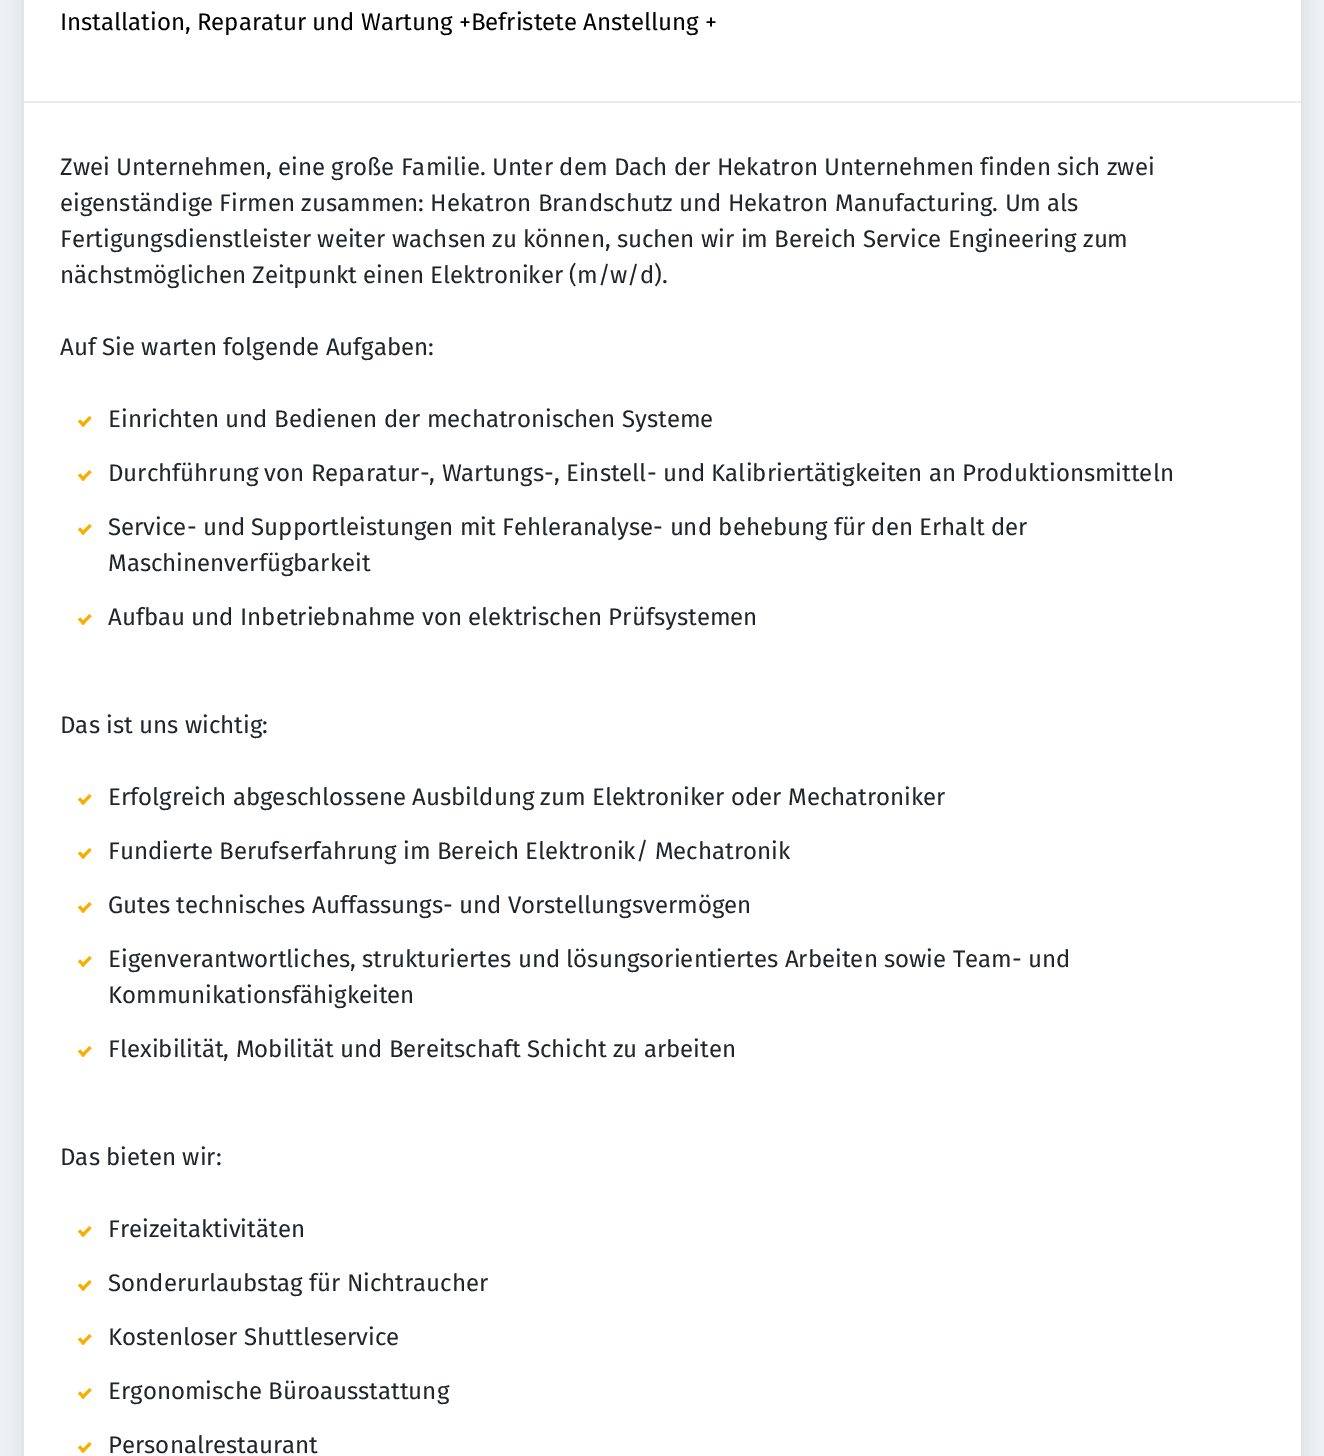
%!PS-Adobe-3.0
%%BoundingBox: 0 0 1324 1456
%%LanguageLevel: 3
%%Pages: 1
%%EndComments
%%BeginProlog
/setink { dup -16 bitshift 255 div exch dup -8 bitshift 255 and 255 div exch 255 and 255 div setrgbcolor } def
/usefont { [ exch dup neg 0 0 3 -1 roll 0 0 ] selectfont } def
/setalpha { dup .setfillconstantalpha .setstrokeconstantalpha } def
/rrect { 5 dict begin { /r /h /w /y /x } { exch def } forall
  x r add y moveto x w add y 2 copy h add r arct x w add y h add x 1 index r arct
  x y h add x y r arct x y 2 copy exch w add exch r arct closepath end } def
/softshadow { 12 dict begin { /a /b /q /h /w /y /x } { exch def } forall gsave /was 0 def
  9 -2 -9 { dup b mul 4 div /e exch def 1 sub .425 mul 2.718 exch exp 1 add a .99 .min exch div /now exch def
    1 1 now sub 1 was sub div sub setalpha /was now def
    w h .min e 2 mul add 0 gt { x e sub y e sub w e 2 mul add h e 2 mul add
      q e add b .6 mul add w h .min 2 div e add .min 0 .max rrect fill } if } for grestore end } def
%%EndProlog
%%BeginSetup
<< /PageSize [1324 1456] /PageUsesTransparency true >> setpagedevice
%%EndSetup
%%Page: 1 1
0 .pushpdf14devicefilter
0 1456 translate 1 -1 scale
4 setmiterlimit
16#EFF2F4 setink
0 0 1324 1456 rectfill
16#000000 setink
24 -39 1277 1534 6 11 0.1 softshadow
16#FFFFFF setink
24 0 1277 1456 rectfill
16#E9ECEF setink
24 101 1277 2 rectfill
/FiraSans-Regular 24 usefont
16#000000 setink
60 30 moveto (Installation, Reparatur und Wartung +Befristete Anstellung +) show
16#212529 setink
[
    [(Zwei Unternehmen, eine große Familie. Unter dem Dach der Hekatron Unternehmen finden sich zwei) 60 175]
    [(eigenständige Firmen zusammen: Hekatron Brandschutz und Hekatron Manufacturing. Um als) 60 211]
    [(Fertigungsdienstleister weiter wachsen zu können, suchen wir im Bereich Service Engineering zum) 60 247]
    [(nächstmöglichen Zeitpunkt einen Elektroniker \(m/w/d\).) 60 283]
    [(Auf Sie warten folgende Aufgaben:) 60 355]
] { aload pop moveto show } forall
16#F8AE00 setink
89.5 416 moveto 91.5 418.5 lineto 83 427 lineto 81 424.5 lineto closepath fill
80 419.5 moveto 85.5 424.5 lineto 83 427 lineto 78 421.5 lineto closepath fill
16#212529 setink
108 427 moveto (Einrichten und Bedienen der mechatronischen Systeme) show
16#F8AE00 setink
89.5 470 moveto 91.5 472.5 lineto 83 481 lineto 81 478.5 lineto closepath fill
80 473.5 moveto 85.5 478.5 lineto 83 481 lineto 78 475.5 lineto closepath fill
16#212529 setink
108 481 moveto (Durchführung von Reparatur-, Wartungs-, Einstell- und Kalibriertätigkeiten an Produktionsmitteln) show
16#F8AE00 setink
89.5 524 moveto 91.5 526.5 lineto 83 535 lineto 81 532.5 lineto closepath fill
80 527.5 moveto 85.5 532.5 lineto 83 535 lineto 78 529.5 lineto closepath fill
16#212529 setink
108 535 moveto (Service- und Supportleistungen mit Fehleranalyse- und behebung für den Erhalt der) show
108 571 moveto (Maschinenverfügbarkeit) show
16#F8AE00 setink
89.5 614 moveto 91.5 616.5 lineto 83 625 lineto 81 622.5 lineto closepath fill
80 617.5 moveto 85.5 622.5 lineto 83 625 lineto 78 619.5 lineto closepath fill
16#212529 setink
108 625 moveto (Aufbau und Inbetriebnahme von elektrischen Prüfsystemen) show
60 733 moveto (Das ist uns wichtig:) show
16#F8AE00 setink
89.5 794 moveto 91.5 796.5 lineto 83 805 lineto 81 802.5 lineto closepath fill
80 797.5 moveto 85.5 802.5 lineto 83 805 lineto 78 799.5 lineto closepath fill
16#212529 setink
108 805 moveto (Erfolgreich abgeschlossene Ausbildung zum Elektroniker oder Mechatroniker) show
16#F8AE00 setink
89.5 848 moveto 91.5 850.5 lineto 83 859 lineto 81 856.5 lineto closepath fill
80 851.5 moveto 85.5 856.5 lineto 83 859 lineto 78 853.5 lineto closepath fill
16#212529 setink
108 859 moveto (Fundierte Berufserfahrung im Bereich Elektronik/ Mechatronik) show
16#F8AE00 setink
89.5 902 moveto 91.5 904.5 lineto 83 913 lineto 81 910.5 lineto closepath fill
80 905.5 moveto 85.5 910.5 lineto 83 913 lineto 78 907.5 lineto closepath fill
16#212529 setink
108 913 moveto (Gutes technisches Auffassungs- und Vorstellungsvermögen) show
16#F8AE00 setink
89.5 956 moveto 91.5 958.5 lineto 83 967 lineto 81 964.5 lineto closepath fill
80 959.5 moveto 85.5 964.5 lineto 83 967 lineto 78 961.5 lineto closepath fill
16#212529 setink
108 967 moveto (Eigenverantwortliches, strukturiertes und lösungsorientiertes Arbeiten sowie Team- und) show
108 1003 moveto (Kommunikationsfähigkeiten) show
16#F8AE00 setink
89.5 1046 moveto 91.5 1048.5 lineto 83 1057 lineto 81 1054.5 lineto closepath fill
80 1049.5 moveto 85.5 1054.5 lineto 83 1057 lineto 78 1051.5 lineto closepath fill
16#212529 setink
108 1057 moveto (Flexibilität, Mobilität und Bereitschaft Schicht zu arbeiten) show
60 1165 moveto (Das bieten wir:) show
16#F8AE00 setink
89.5 1226 moveto 91.5 1228.5 lineto 83 1237 lineto 81 1234.5 lineto closepath fill
80 1229.5 moveto 85.5 1234.5 lineto 83 1237 lineto 78 1231.5 lineto closepath fill
16#212529 setink
108 1237 moveto (Freizeitaktivitäten) show
16#F8AE00 setink
89.5 1280 moveto 91.5 1282.5 lineto 83 1291 lineto 81 1288.5 lineto closepath fill
80 1283.5 moveto 85.5 1288.5 lineto 83 1291 lineto 78 1285.5 lineto closepath fill
16#212529 setink
108 1291 moveto (Sonderurlaubstag für Nichtraucher) show
16#F8AE00 setink
89.5 1334 moveto 91.5 1336.5 lineto 83 1345 lineto 81 1342.5 lineto closepath fill
80 1337.5 moveto 85.5 1342.5 lineto 83 1345 lineto 78 1339.5 lineto closepath fill
16#212529 setink
108 1345 moveto (Kostenloser Shuttleservice) show
16#F8AE00 setink
89.5 1388 moveto 91.5 1390.5 lineto 83 1399 lineto 81 1396.5 lineto closepath fill
80 1391.5 moveto 85.5 1396.5 lineto 83 1399 lineto 78 1393.5 lineto closepath fill
16#212529 setink
108 1399 moveto (Ergonomische Büroausstattung) show
16#F8AE00 setink
89.5 1442 moveto 91.5 1444.5 lineto 83 1453 lineto 81 1450.5 lineto closepath fill
80 1445.5 moveto 85.5 1450.5 lineto 83 1453 lineto 78 1447.5 lineto closepath fill
16#212529 setink
108 1453 moveto (Personalrestaurant) show
.poppdf14devicefilter showpage
%%EOF
